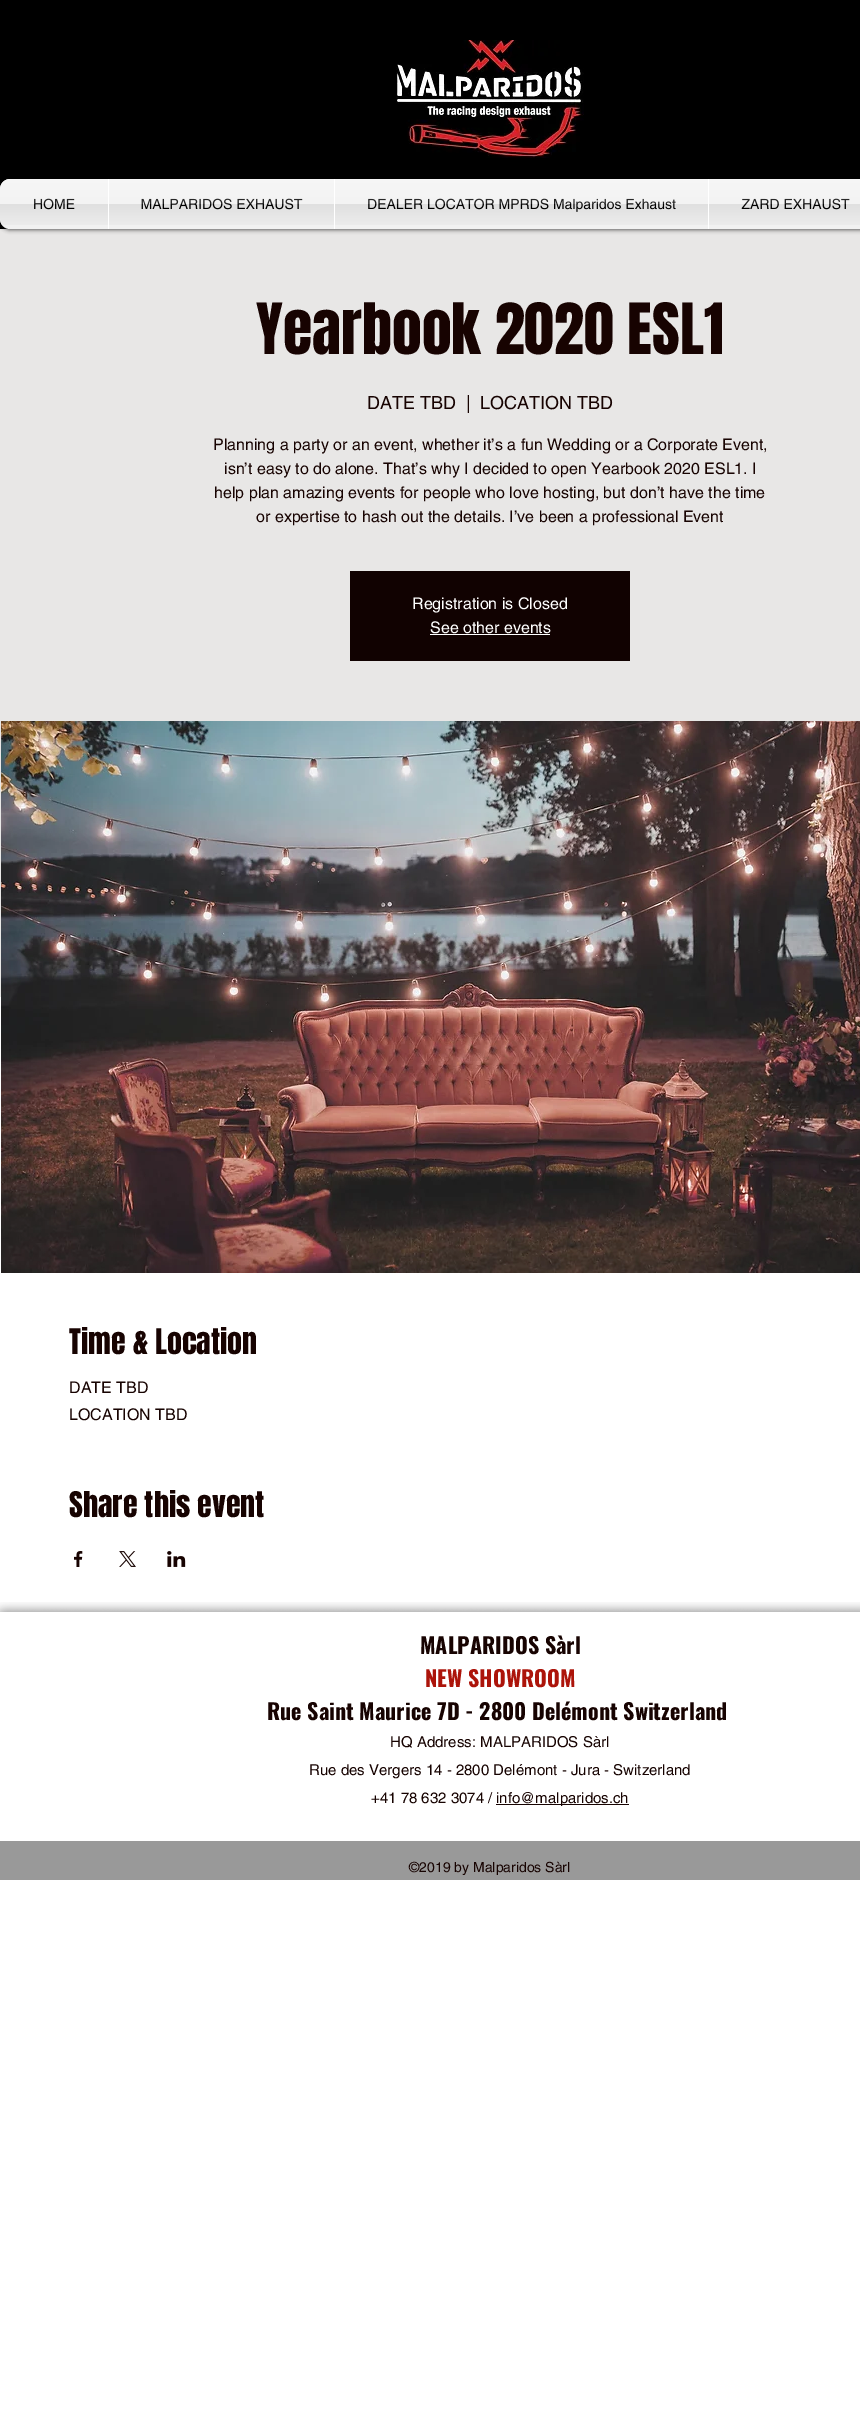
%!PS-Adobe-3.0
%%BoundingBox: 0 0 860 2409
%%LanguageLevel: 3
%%Pages: 1
%%EndComments
%%BeginProlog
/setink { dup -16 bitshift 255 div exch dup -8 bitshift 255 and 255 div exch 255 and 255 div setrgbcolor } def
/usefont { [ exch dup neg 0 0 3 -1 roll 0 0 ] selectfont } def
/setalpha { dup .setfillconstantalpha .setstrokeconstantalpha } def
/rrect { 5 dict begin { /r /h /w /y /x } { exch def } forall
  x r add y moveto x w add y 2 copy h add r arct x w add y h add x 1 index r arct
  x y h add x y r arct x y 2 copy exch w add exch r arct closepath end } def
/softshadow { 12 dict begin { /a /b /q /h /w /y /x } { exch def } forall gsave /was 0 def
  9 -2 -9 { dup b mul 4 div /e exch def 1 sub .425 mul 2.718 exch exp 1 add a .99 .min exch div /now exch def
    1 1 now sub 1 was sub div sub setalpha /was now def
    w h .min e 2 mul add 0 gt { x e sub y e sub w e 2 mul add h e 2 mul add
      q e add b .6 mul add w h .min 2 div e add .min 0 .max rrect fill } if } for grestore end } def
/drawimage { 5 dict begin { /h /w /y /x /name } { exch def } forall
  gsave x y translate w h scale
  w h 8 [w 0 0 h 0 0] name (r) file false 3 colorimage grestore end } def
%%EndProlog
%%BeginSetup
<< /PageSize [860 2409] /PageUsesTransparency true >> setpagedevice
%%EndSetup
%%Page: 1 1
0 .pushpdf14devicefilter
0 2409 translate 1 -1 scale
4 setmiterlimit
16#FFFFFF setink
0 0 860 2409 rectfill
16#000000 setink
0 0 860 229 rectfill
(img1.raw) 396 40 188 118 drawimage
16#E8E7E6 setink
0 229 860 768 rectfill
16#000000 setink
0 180 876 50 10 2 0.6 softshadow
(img2.raw) 0 179 10 42 drawimage
16#F1F1F1 setink
10 179 moveto 108 179 lineto 108 229 lineto 10 229 lineto 4.5 229 0 224.5 0 219 curveto 0 189 lineto 0 183.5 4.5 179 10 179 curveto closepath fill
/helvetica-Regular 14 usefont
16#000000 setink
33 209 moveto (HOME) show
(img3.raw) 0 179 108 46 drawimage
16#F1F1F1 setink
109 179 225 50 rectfill
16#FFFFFF setink
108 179 1 50 rectfill
16#000000 setink
141 209 moveto (MALPARIDOS EXHAUST) show
(img4.raw) 109 179 225 46 drawimage
16#F1F1F1 setink
335 179 373 50 rectfill
16#FFFFFF setink
334 179 1 50 rectfill
16#000000 setink
367 209 moveto (DEALER LOCATOR MPRDS Malparidos Exhaust) show
(img5.raw) 335 179 373 46 drawimage
16#F1F1F1 setink
709 179 151 50 rectfill
16#FFFFFF setink
708 179 1 50 rectfill
16#000000 setink
741 209 moveto (ZARD EXHAUST) show
(img6.raw) 709 179 151 46 drawimage
/Anton-Regular 60 usefont
16#170301 setink
256 354 moveto (Yearbook 2020 ESL1) show
/helvetica-Regular 18 usefont
[
    [(DATE TBD) 367 409]
    [(|) 466 409]
    [(LOCATION TBD) 480 409]
] { aload pop moveto show } forall
/helvetica-Regular 16 usefont
[
    [(Planning a party or an event, whether it’s a fun Wedding or a Corporate Event,) 213 450]
    [(isn’t easy to do alone. That’s why I decided to open Yearbook 2020 ESL1. I) 224 474]
    [(help plan amazing events for people who love hosting, but don’t have the time) 214 498]
    [(or expertise to hash out the details. I’ve been a professional Event) 256 522]
] { aload pop moveto show } forall
16#110201 setink
350 571 280 90 rectfill
16#FFFFFF setink
412 609 moveto (Registration is Closed) show
430 633 moveto (See other events) show
430 634 120 1 rectfill
(img7.raw) 1 721 859 552 drawimage
/Anton-Regular 30 usefont
16#170301 setink
69 1354 moveto (Time & Location) show
/helvetica-Regular 16 usefont
69 1393 moveto (DATE TBD) show
69 1420 moveto (LOCATION TBD) show
/Anton-Regular 30 usefont
69 1517 moveto (Share this event) show
(img8.raw) 74 1551 9 16 drawimage
(img9.raw) 119 1551 17 16 drawimage
(img10.raw) 167 1551 19 16 drawimage
(img11.raw) 0 1602 35 10 drawimage
(img12.raw) 35 1602 825 10 drawimage
/Oswald-Bold 22 usefont
420 1654 moveto (MALPARIDOS Sàrl) show
16#AC140A setink
425 1687 moveto (NEW SHOWROOM) show
16#170301 setink
267 1720 moveto (Rue Saint Maurice 7D - 2800 Delémont Switzerland) show
/helvetica-Regular 15 usefont
[
    [(HQ Address: MALPARIDOS Sàrl) 390 1747]
    [(Rue des Vergers 14 - 2800 Delémont - Jura - Switzerland) 309 1775]
    [(+41 78 632 3074 /) 371 1803]
] { aload pop moveto show } forall
496 1804 133 1 rectfill
496 1803 moveto (info@malparidos.ch) show
16#999999 setink
0 1841 860 39 rectfill
/helvetica-Regular 14 usefont
16#170301 setink
409 1872 moveto (©2019 by Malparidos Sàrl) show
.poppdf14devicefilter showpage
%%EOF
